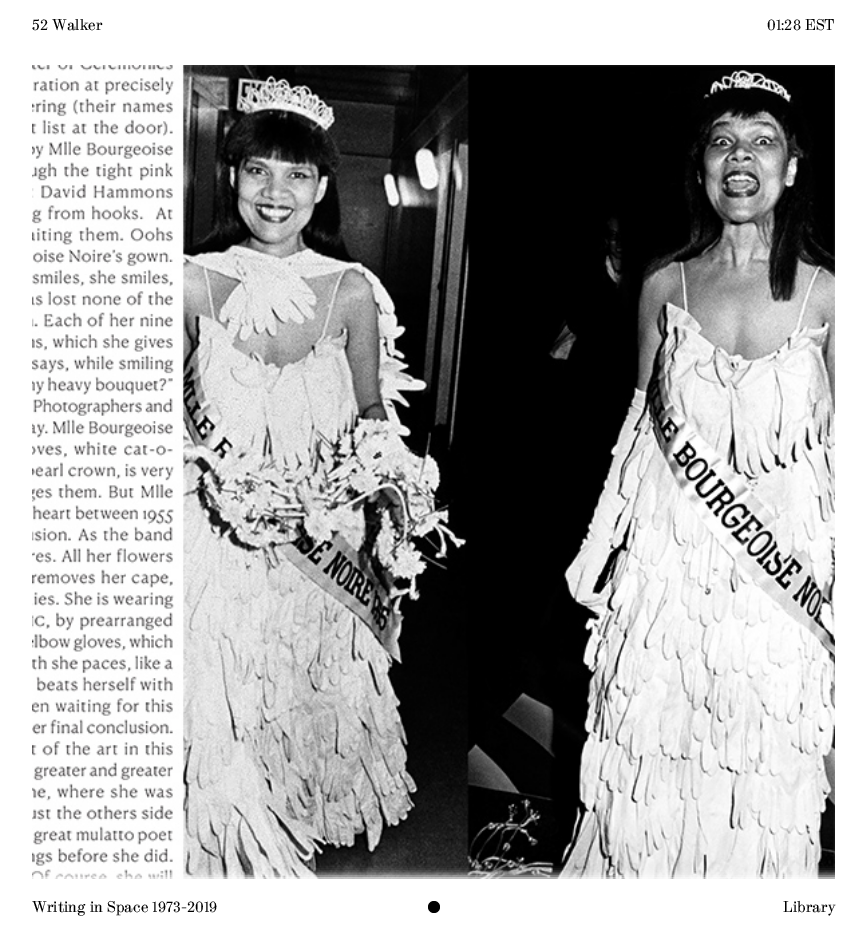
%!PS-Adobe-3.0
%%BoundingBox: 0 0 867 932
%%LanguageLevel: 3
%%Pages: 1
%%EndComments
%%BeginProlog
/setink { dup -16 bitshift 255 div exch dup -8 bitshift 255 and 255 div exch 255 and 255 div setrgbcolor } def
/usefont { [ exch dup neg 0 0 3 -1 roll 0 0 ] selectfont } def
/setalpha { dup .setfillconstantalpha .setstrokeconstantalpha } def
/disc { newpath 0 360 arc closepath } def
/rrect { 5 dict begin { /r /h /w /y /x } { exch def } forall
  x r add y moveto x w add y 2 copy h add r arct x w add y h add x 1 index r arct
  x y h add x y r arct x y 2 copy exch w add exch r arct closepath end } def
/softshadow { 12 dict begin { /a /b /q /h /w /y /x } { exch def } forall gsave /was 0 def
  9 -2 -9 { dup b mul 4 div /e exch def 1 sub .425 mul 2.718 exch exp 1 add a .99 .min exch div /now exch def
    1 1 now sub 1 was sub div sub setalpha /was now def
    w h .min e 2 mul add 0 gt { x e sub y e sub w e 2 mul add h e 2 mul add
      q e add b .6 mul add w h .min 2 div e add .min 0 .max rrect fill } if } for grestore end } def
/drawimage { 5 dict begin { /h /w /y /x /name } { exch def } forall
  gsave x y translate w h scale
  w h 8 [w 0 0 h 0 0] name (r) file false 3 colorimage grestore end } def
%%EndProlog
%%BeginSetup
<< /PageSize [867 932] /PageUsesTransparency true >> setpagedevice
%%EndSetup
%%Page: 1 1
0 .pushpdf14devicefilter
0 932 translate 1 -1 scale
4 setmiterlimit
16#FFFFFF setink
0 0 867 932 rectfill
/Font-Regular 16 usefont
16#000000 setink
32 30 moveto (52 Walker) show
767 30 moveto (01:28 EST) show
(img1.raw) 32 65 803 814 drawimage
16#FFFFFF setink
-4 876 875 11 0 4.5 1 softshadow
16#000000 setink
32 912 moveto (Writing in Space 1973-2019) show
783 912 moveto (Library) show
434 907 6 disc fill
.poppdf14devicefilter showpage
%%EOF
